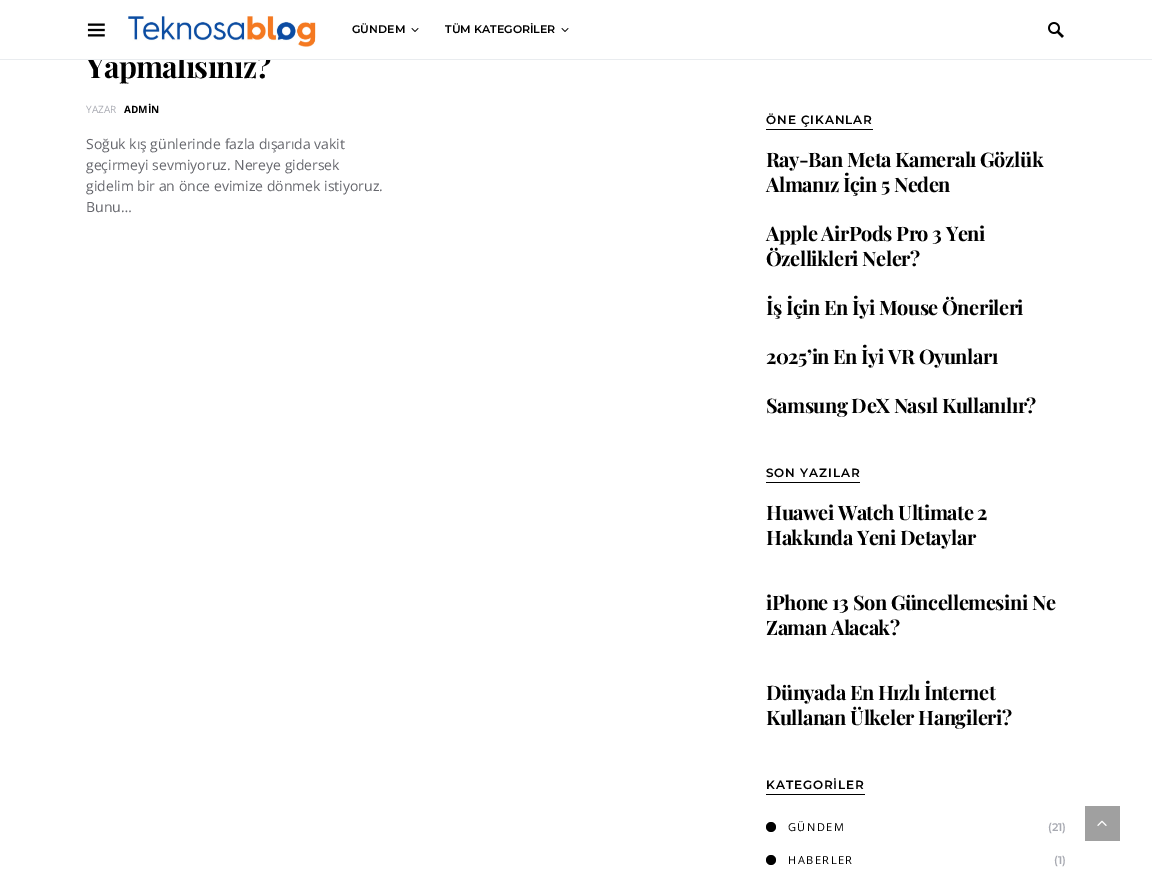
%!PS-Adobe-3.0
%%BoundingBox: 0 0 1152 873
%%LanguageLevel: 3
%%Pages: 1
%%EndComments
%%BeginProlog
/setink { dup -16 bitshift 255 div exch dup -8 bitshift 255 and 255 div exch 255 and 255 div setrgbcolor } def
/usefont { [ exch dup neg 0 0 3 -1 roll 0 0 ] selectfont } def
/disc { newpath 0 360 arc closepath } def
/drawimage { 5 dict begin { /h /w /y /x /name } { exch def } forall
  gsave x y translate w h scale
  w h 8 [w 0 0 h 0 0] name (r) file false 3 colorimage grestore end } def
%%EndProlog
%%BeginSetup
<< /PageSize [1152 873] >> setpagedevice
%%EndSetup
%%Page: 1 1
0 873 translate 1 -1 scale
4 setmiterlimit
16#FFFFFF setink
0 0 1152 873 rectfill
/PlayfairDisplay-Bold 30 usefont
16#000000 setink
86 78 moveto -0.75 0 (Yapmalısınız?) ashow
16#FFFFFF setink
85 54 186 5 rectfill
16#E9ECEF setink
0 59 1152 1 rectfill
(img1.raw) 87 23 18 14 drawimage
(img2.raw) 128 16 188 31 drawimage
/Montserrat-SemiBold 11 usefont
16#000000 setink
352 33 moveto (GÜNDEM) show
(img3.raw) 411 28 8 4 drawimage
445 33 moveto (TÜM KATEGORİLER) show
(img3.raw) 561 28 8 4 drawimage
(img4.raw) 1048 22 16 16 drawimage
/OpenSans-Regular 10 usefont
16#A8AAB2 setink
86 113 moveto (YAZAR) show
/OpenSans-Bold 10 usefont
16#000000 setink
124 113 moveto (ADMİN) show
/OpenSans-Regular 14 usefont
16#66676D setink
[
    [(Soğuk kış günlerinde fazla dışarıda vakit) 86 149]
    [(geçirmeyi sevmiyoruz. Nereye gidersek) 86 170]
    [(gidelim bir an önce evimize dönmek istiyoruz.) 86 191]
    [(Bunu…) 86 212]
] { aload pop moveto show } forall
/Montserrat-SemiBold 12 usefont
16#000000 setink
766 124 moveto 0.9 0 (ÖNE ÇIKANLAR) ashow
766 129 107 1 rectfill
/PlayfairDisplay-Bold 20 usefont
766 167 moveto -0.5 0 (Ray-Ban Meta Kameralı Gözlük) ashow
766 192 moveto -0.5 0 (Almanız İçin 5 Neden) ashow
766 241 moveto -0.5 0 (Apple AirPods Pro 3 Yeni) ashow
766 266 moveto -0.5 0 (Özellikleri Neler?) ashow
766 315 moveto -0.5 0 (İş İçin En İyi Mouse Önerileri) ashow
766 364 moveto -0.5 0 (2025’in En İyi VR Oyunları) ashow
766 413 moveto -0.5 0 (Samsung DeX Nasıl Kullanılır?) ashow
/Montserrat-SemiBold 12 usefont
766 477 moveto 0.9 0 (SON YAZILAR) ashow
766 482 94 1 rectfill
/PlayfairDisplay-Bold 20 usefont
766 520 moveto -0.5 0 (Huawei Watch Ultimate 2) ashow
766 545 moveto -0.5 0 (Hakkında Yeni Detaylar) ashow
766 610 moveto -0.5 0 (iPhone 13 Son Güncellemesini Ne) ashow
766 635 moveto -0.5 0 (Zaman Alacak?) ashow
766 700 moveto -0.5 0 (Dünyada En Hızlı İnternet) ashow
766 725 moveto -0.5 0 (Kullanan Ülkeler Hangileri?) ashow
/Montserrat-SemiBold 12 usefont
766 789 moveto 0.9 0 (KATEGORİLER) ashow
766 794 99 1 rectfill
771 827 5 disc fill
/OpenSans-Regular 11 usefont
788 831 moveto 1.5 0 (GÜNDEM) ashow
/Montserrat-SemiBold 11 usefont
16#A8AAB2 setink
1048 831 moveto (\(21\)) show
16#000000 setink
771 860 5 disc fill
/OpenSans-Regular 11 usefont
788 864 moveto 1.5 0 (HABERLER) ashow
/Montserrat-SemiBold 11 usefont
16#A8AAB2 setink
1054 864 moveto (\(1\)) show
16#A0A0A0 setink
1085 806 35 35 rectfill
(img5.raw) 1097 820 10 6 drawimage
showpage
%%EOF
